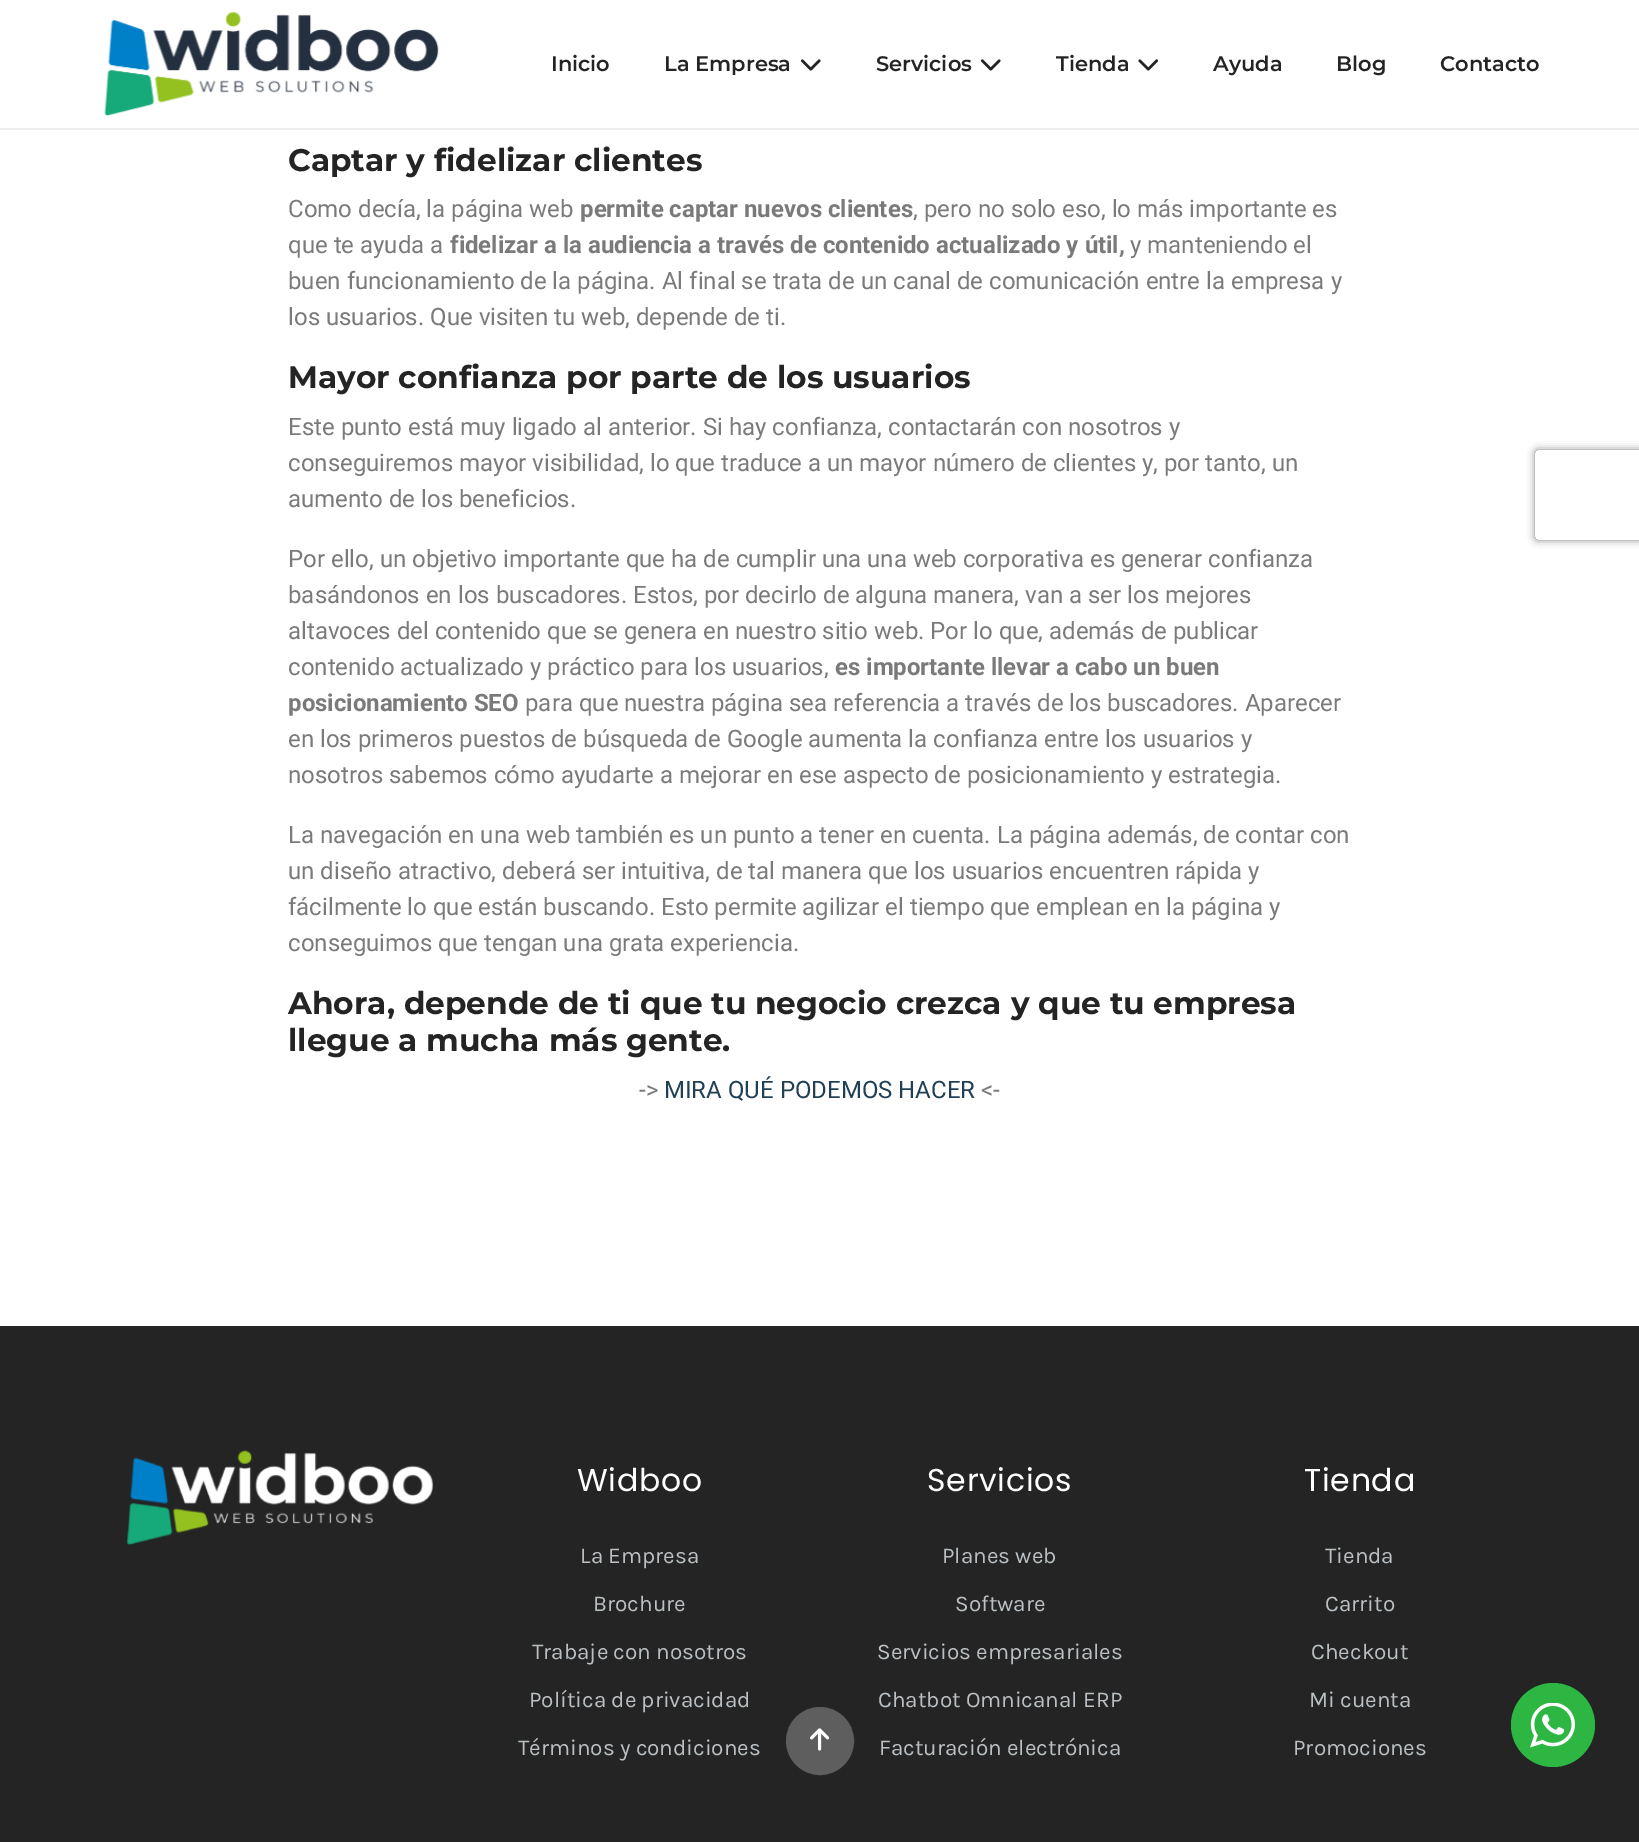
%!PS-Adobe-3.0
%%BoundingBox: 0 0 1639 1842
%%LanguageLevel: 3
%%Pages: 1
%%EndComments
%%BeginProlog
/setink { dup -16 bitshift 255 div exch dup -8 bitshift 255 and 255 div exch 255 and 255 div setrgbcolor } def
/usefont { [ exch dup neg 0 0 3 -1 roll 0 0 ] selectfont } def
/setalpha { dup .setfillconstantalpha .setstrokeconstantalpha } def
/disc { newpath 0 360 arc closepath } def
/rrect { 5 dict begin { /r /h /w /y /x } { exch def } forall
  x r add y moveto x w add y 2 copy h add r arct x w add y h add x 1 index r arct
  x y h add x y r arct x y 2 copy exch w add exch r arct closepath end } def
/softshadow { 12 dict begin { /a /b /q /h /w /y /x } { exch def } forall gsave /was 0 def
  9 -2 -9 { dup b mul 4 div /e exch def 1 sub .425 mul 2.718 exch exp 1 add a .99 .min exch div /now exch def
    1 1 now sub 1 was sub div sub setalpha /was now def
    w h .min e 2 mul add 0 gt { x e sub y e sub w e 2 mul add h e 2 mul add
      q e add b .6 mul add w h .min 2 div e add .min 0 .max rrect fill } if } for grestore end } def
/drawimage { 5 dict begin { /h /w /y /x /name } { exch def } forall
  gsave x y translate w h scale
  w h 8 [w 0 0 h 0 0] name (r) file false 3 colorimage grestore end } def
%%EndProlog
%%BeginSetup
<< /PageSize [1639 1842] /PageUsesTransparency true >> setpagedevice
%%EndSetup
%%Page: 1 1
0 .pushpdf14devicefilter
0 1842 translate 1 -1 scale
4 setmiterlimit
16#FFFFFF setink
0 0 1639 1842 rectfill
16#EEEEEE setink
0 128 1639 2 rectfill
(img1.raw) 104 11 335 105 drawimage
/Montserrat-SemiBold 21 usefont
16#242424 setink
551 71 moveto (Inicio) show
664 71 moveto (La Empresa) show
(img2.raw) 800 59 21 12 drawimage
876 71 moveto (Servicios) show
(img2.raw) 980 59 21 12 drawimage
1056 71 moveto (Tienda) show
(img3.raw) 1138 59 21 12 drawimage
[
    [(Ayuda) 1213 71]
    [(Blog) 1336 71]
    [(Contacto) 1440 71]
] { aload pop moveto show } forall
/Montserrat-Bold 31.2 usefont
288 171 moveto (Captar y fidelizar clientes) show
/Roboto-Regular 24 usefont
16#7A7A7A setink
288 217 moveto (Como decía, la página web) show
/Roboto-Bold 24 usefont
580 217 moveto (permite captar nuevos clientes) show
/Roboto-Regular 24 usefont
913 217 moveto (, pero no solo eso, lo más importante es) show
288 253 moveto (que te ayuda a) show
/Roboto-Bold 24 usefont
450 253 moveto (fidelizar a la audiencia a través de contenido actualizado y útil,) show
/Roboto-Regular 24 usefont
[
    [(y manteniendo el) 1130 253]
    [(buen funcionamiento de la página. Al final se trata de un canal de comunicación entre la empresa y) 288 289]
    [(los usuarios. Que visiten tu web, depende de ti.) 288 325]
] { aload pop moveto show } forall
/Montserrat-Bold 31.2 usefont
16#242424 setink
288 388 moveto (Mayor confianza por parte de los usuarios) show
/Roboto-Regular 24 usefont
16#7A7A7A setink
[
    [(Este punto está muy ligado al anterior. Si hay confianza, contactarán con nosotros y) 288 435]
    [(conseguiremos mayor visibilidad, lo que traduce a un mayor número de clientes y, por tanto, un) 288 471]
    [(aumento de los beneficios.) 288 507]
    [(Por ello, un objetivo importante que ha de cumplir una una web corporativa es generar confianza) 288 567]
    [(basándonos en los buscadores. Estos, por decirlo de alguna manera, van a ser los mejores) 288 603]
    [(altavoces del contenido que se genera en nuestro sitio web. Por lo que, además de publicar) 288 639]
    [(contenido actualizado y práctico para los usuarios,) 288 675]
] { aload pop moveto show } forall
/Roboto-Bold 24 usefont
835 675 moveto (es importante llevar a cabo un buen) show
288 711 moveto (posicionamiento SEO) show
/Roboto-Regular 24 usefont
[
    [(para que nuestra página sea referencia a través de los buscadores. Aparecer) 525 711]
    [(en los primeros puestos de búsqueda de Google aumenta la confianza entre los usuarios y) 288 747]
    [(nosotros sabemos cómo ayudarte a mejorar en ese aspecto de posicionamiento y estrategia.) 288 783]
    [(La navegación en una web también es un punto a tener en cuenta. La página además, de contar con) 288 843]
    [(un diseño atractivo, deberá ser intuitiva, de tal manera que los usuarios encuentren rápida y) 288 879]
    [(fácilmente lo que están buscando. Esto permite agilizar el tiempo que emplean en la página y) 288 915]
    [(conseguimos que tengan una grata experiencia.) 288 951]
] { aload pop moveto show } forall
/Montserrat-Bold 31.2 usefont
16#242424 setink
288 1014 moveto (Ahora, depende de ti que tu negocio crezca y que tu empresa) show
288 1051 moveto (llegue a mucha más gente.) show
/Roboto-Regular 24 usefont
16#7A7A7A setink
639 1098 moveto (->) show
16#204056 setink
664 1098 moveto (MIRA QUÉ PODEMOS HACER) show
16#7A7A7A setink
981 1098 moveto (<-) show
16#242424 setink
0 1326 1639 516 rectfill
(img4.raw) 126 1450 308 95 drawimage
/Poppins-Regular 31.5 usefont
16#FFFFFF setink
577 1491 moveto 0.75 0 (Widboo) ashow
/Karla-Regular 22.5 usefont
16#BAC0C3 setink
[
    [(La Empresa) 580 1563]
    [(Brochure) 593 1611]
    [(Trabaje con nosotros) 532 1659]
    [(Política de privacidad) 529 1707]
    [(Términos y condiciones) 518 1755]
] { aload pop moveto show } forall
/Poppins-Regular 31.5 usefont
16#FFFFFF setink
927 1491 moveto 0.75 0 (Servicios) ashow
/Karla-Regular 22.5 usefont
16#BAC0C3 setink
[
    [(Planes web) 942 1563]
    [(Software) 955 1611]
    [(Servicios empresariales) 877 1659]
    [(Chatbot Omnicanal ERP) 878 1707]
    [(Facturación electrónica) 879 1755]
] { aload pop moveto show } forall
/Poppins-Regular 31.5 usefont
16#FFFFFF setink
1304 1491 moveto 0.75 0 (Tienda) ashow
/Karla-Regular 22.5 usefont
16#BAC0C3 setink
[
    [(Tienda) 1325 1563]
    [(Carrito) 1325 1611]
    [(Checkout) 1311 1659]
    [(Mi cuenta) 1309 1707]
    [(Promociones) 1293 1755]
] { aload pop moveto show } forall
gsave
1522 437 moveto 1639 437 lineto 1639 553 lineto 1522 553 lineto closepath 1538 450 moveto 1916 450 lineto 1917.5 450 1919 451.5 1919 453 curveto 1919 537 lineto 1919 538.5 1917.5 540 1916 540 curveto 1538 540 lineto 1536.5 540 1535 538.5 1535 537 curveto 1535 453 lineto 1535 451.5 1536.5 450 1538 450 curveto closepath eoclip newpath
16#808080 setink
1535 450 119 90 3 4 1 softshadow
grestore
16#5E5E5E setink
820 1741 33 disc gsave fill grestore
2 setlinewidth
stroke
(img5.raw) 810 1728 20 23 drawimage
16#2DB742 setink
1553 1725 42 disc fill
(img6.raw) 1530 1703 45 45 drawimage
.poppdf14devicefilter showpage
%%EOF
